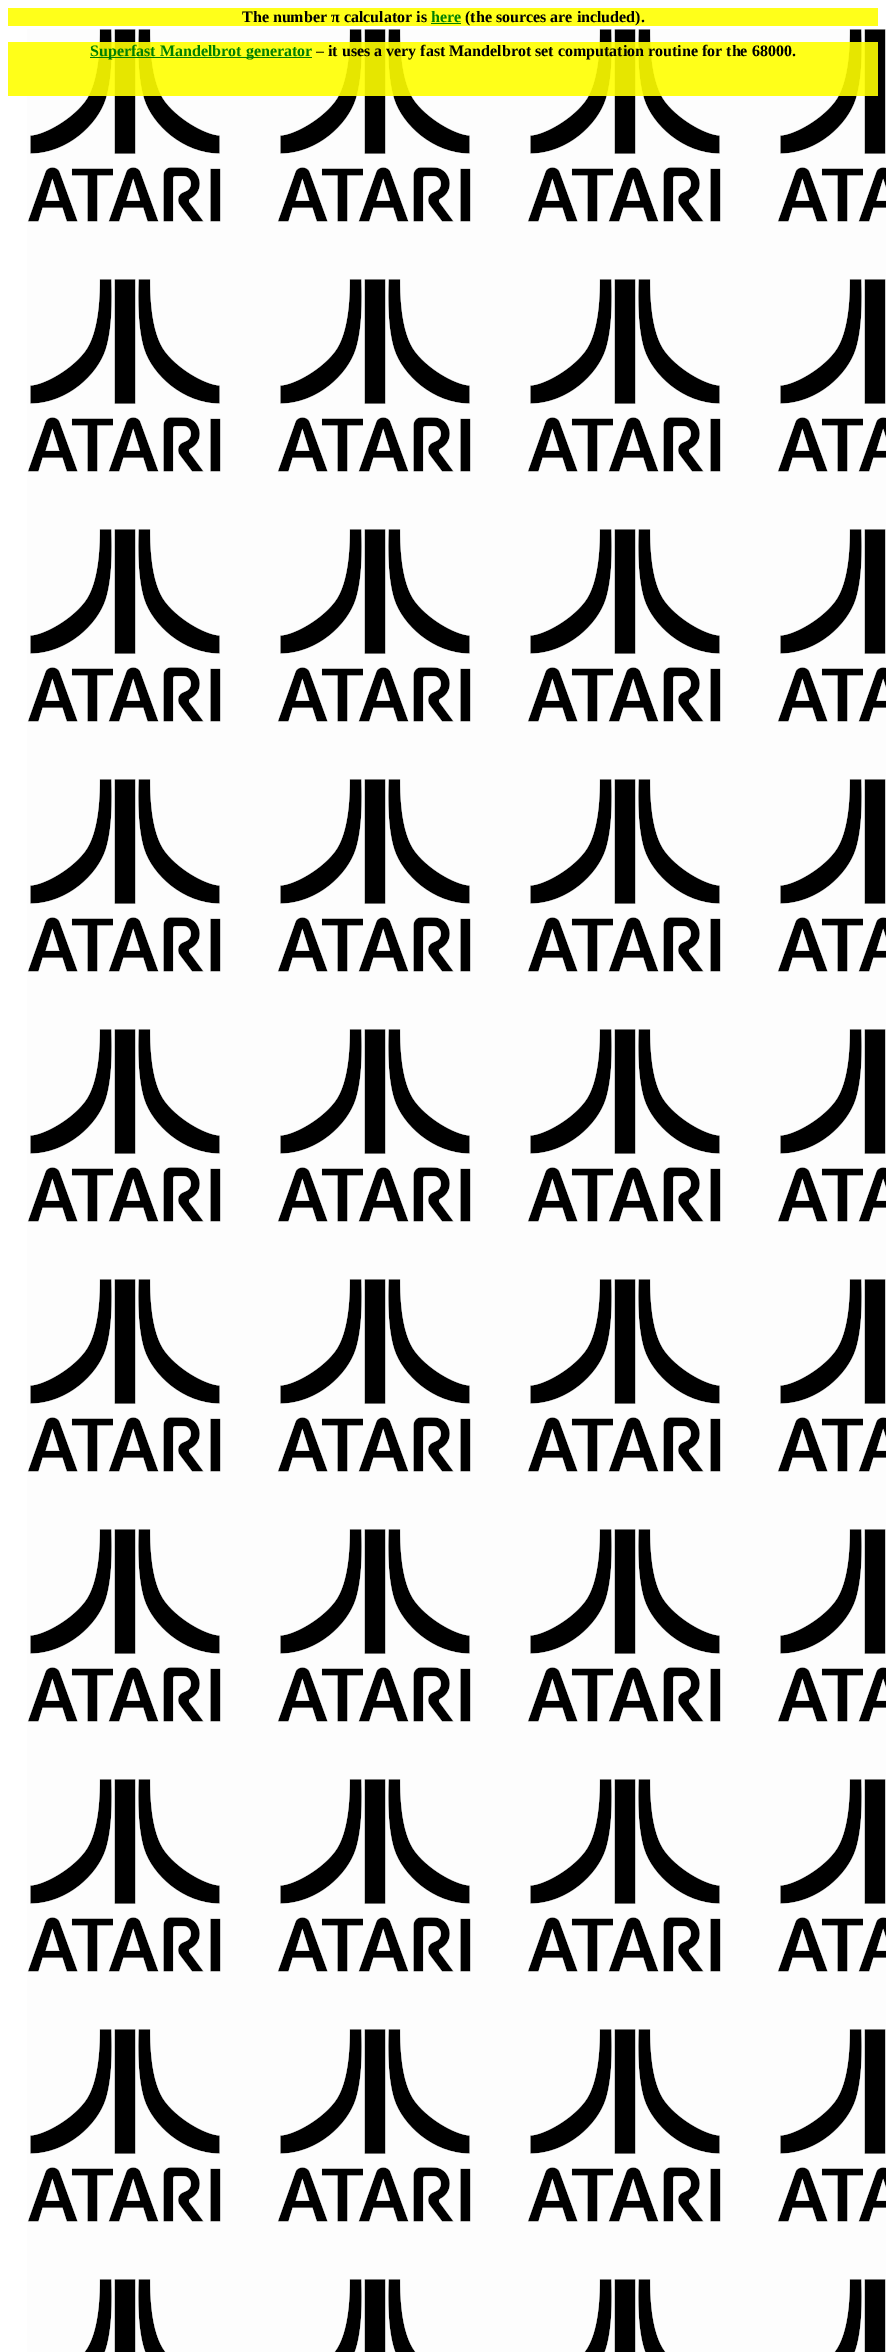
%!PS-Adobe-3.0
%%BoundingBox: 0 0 886 2352
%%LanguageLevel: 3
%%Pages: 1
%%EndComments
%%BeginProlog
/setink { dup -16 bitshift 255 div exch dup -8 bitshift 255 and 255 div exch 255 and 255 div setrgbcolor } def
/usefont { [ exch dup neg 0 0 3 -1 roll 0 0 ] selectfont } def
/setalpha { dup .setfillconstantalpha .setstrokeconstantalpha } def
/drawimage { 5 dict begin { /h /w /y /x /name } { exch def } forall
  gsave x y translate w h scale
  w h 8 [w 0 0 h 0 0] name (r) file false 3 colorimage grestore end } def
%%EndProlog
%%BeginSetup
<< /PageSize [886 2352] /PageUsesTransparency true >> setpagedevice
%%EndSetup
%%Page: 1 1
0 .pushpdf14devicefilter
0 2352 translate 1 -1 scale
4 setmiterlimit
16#FFFFFF setink
0 0 886 2352 rectfill
(img1.raw) 27 29 859 2323 drawimage
16#FFFF1A setink
8 8 870 18 rectfill
/LiberationSerif-Bold 16 usefont
16#000000 setink
242 22 moveto (The number π calculator is) show
16#008000 setink
431 22 moveto (here) show
431 23 30 1 rectfill
16#000000 setink
465 22 moveto (\(the sources are included\).) show
0.9 setalpha
16#FFFF00 setink
8 42 870 54 rectfill
1 setalpha
16#008000 setink
90 57 222 1 rectfill
90 56 moveto (Superfast Mandelbrot generator) show
16#000000 setink
316 56 moveto (– it uses a very fast Mandelbrot set computation routine for the 68000.) show
.poppdf14devicefilter showpage
%%EOF
